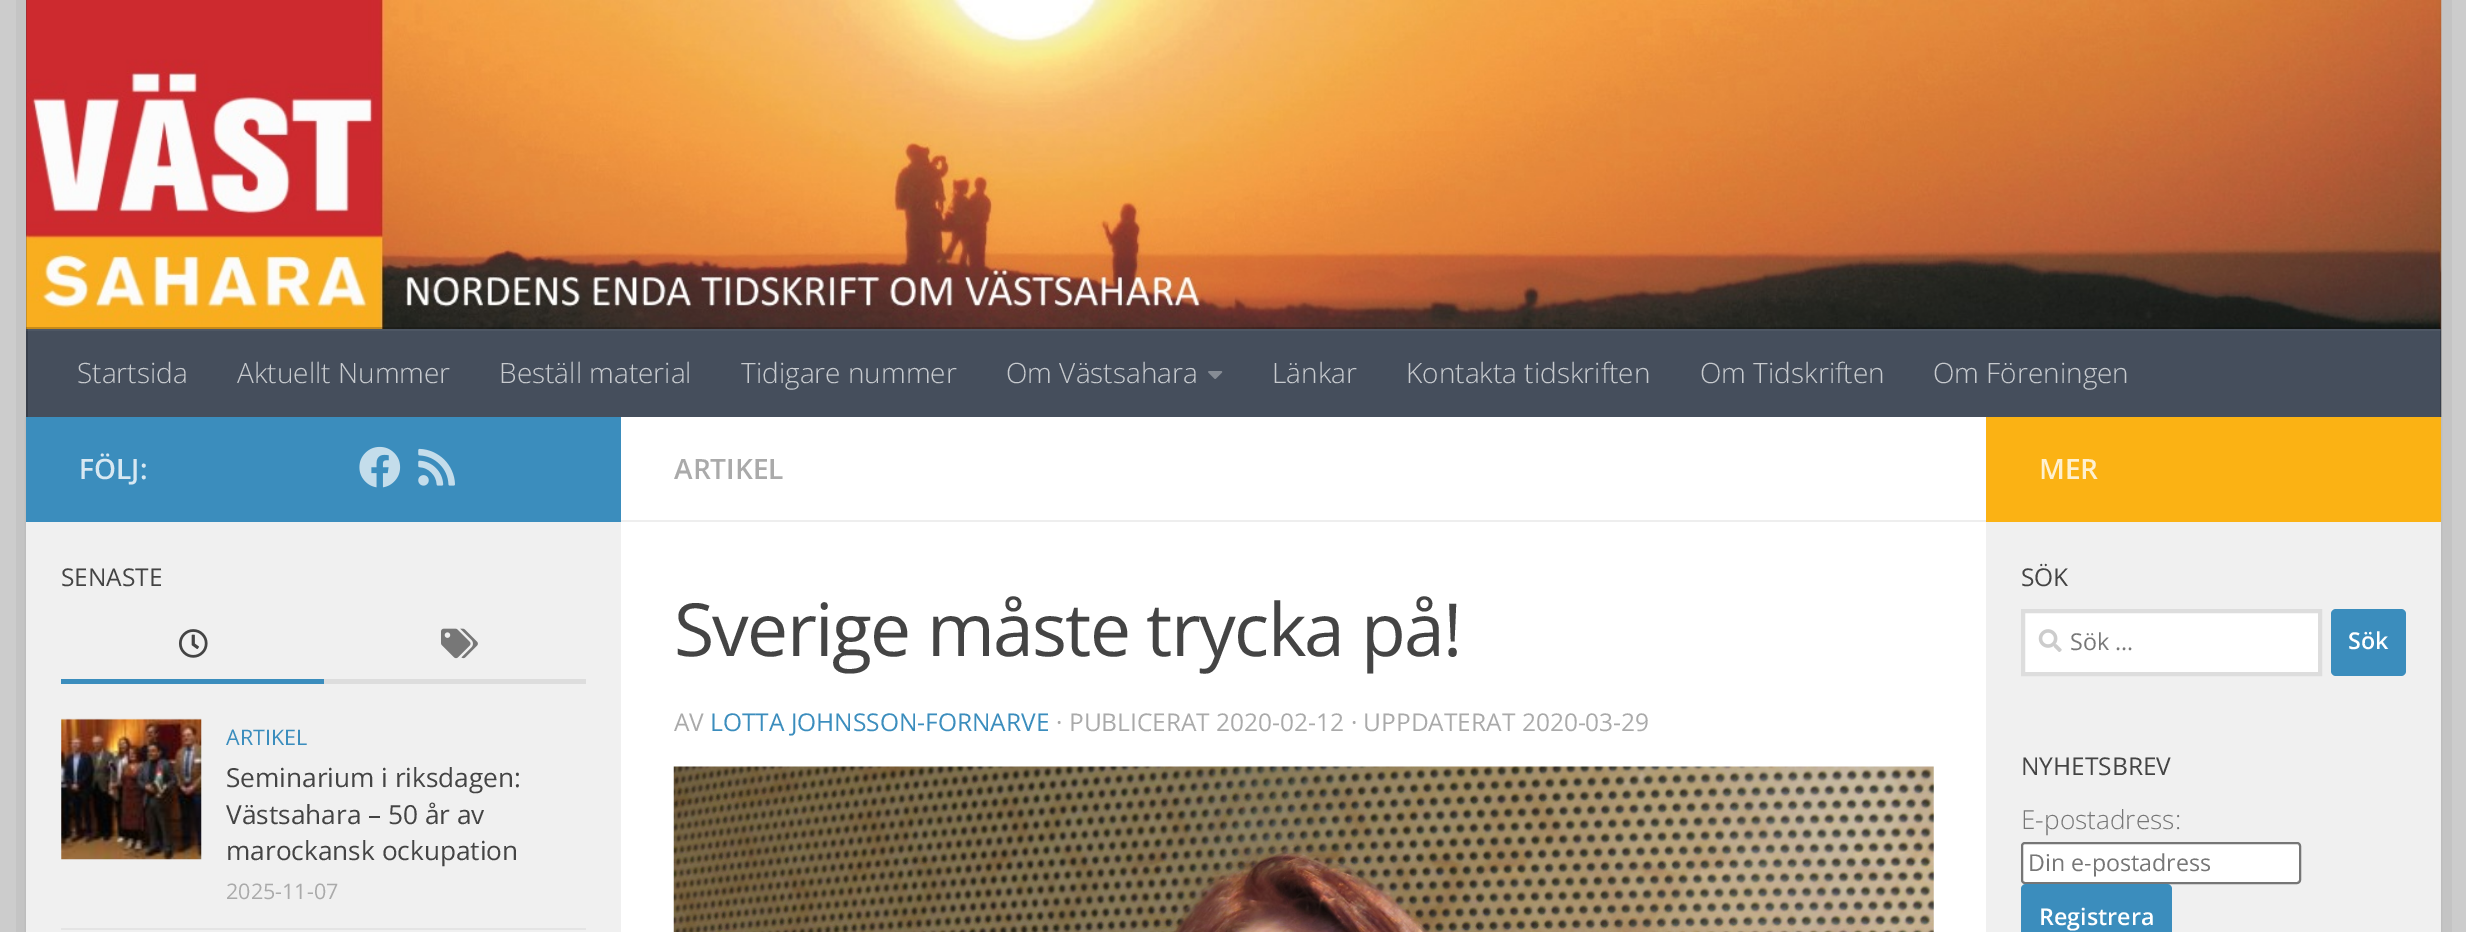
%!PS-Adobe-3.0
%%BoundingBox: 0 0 2466 932
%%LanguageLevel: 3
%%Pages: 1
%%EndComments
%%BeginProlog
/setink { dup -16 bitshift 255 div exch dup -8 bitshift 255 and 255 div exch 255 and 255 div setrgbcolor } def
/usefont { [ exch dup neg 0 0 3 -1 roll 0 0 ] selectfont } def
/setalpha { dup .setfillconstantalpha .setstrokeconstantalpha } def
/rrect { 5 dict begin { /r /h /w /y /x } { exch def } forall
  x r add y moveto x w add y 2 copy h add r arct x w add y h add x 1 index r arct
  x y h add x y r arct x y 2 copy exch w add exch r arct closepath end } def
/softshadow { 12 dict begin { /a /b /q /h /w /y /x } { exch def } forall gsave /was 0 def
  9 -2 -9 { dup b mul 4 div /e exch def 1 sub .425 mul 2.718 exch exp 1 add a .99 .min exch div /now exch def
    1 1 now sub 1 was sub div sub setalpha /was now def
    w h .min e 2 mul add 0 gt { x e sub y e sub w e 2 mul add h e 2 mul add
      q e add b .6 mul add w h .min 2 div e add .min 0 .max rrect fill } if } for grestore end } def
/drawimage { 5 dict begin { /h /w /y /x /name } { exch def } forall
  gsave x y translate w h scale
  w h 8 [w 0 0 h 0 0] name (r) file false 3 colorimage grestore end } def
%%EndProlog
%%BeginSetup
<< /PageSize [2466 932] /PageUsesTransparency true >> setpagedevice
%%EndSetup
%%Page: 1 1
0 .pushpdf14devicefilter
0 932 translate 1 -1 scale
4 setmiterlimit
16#CCCCCC setink
0 0 2466 932 rectfill
16#C4C4C4 setink
16 0 moveto 16 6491 lineto 2431 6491 lineto 26 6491 lineto 26 0 lineto closepath fill
37 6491 moveto 2452 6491 lineto 2452 0 lineto 2441 0 lineto 2441 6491 lineto closepath fill
(img1.raw) 26 0 2416 329 drawimage
0.2 setalpha
16#000000 setink
26 327 moveto 26 415 lineto 26 329 lineto 2441 329 lineto 2441 327 lineto closepath fill
1 setalpha
26 418 2415 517 0 1 0.1 softshadow
[
    [28 329 2413 88 16#454E5C]
] { aload pop setink rectfill } forall
0.2 setalpha
[
    [2440 329 2 88 16#000000]
] { aload pop setink rectfill } forall
1 setalpha
[
    [26 329 2 88 16#373E4A]
] { aload pop setink rectfill } forall
0.05 setalpha
[
    [26 329 2415 2 16#FFFFFF]
] { aload pop setink rectfill } forall
/OpenSans-Light 28 usefont
1 setalpha
16#C7CACE setink
[
    [(Startsida) 77 383]
    [(Aktuellt Nummer) 237 383]
    [(Beställ material) 499 383]
    [(Tidigare nummer) 741 383]
    [(Om Västsahara) 1006 383]
] { aload pop moveto show } forall
(img2.raw) 1208 371 15 8 drawimage
[
    [(Länkar) 1272 383]
    [(Kontakta tidskriften) 1406 383]
    [(Om Tidskriften) 1700 383]
    [(Om Föreningen) 1933 383]
] { aload pop moveto show } forall
16#FFFFFF setink
621 417 1365 515 rectfill
16#3B8DBD setink
26 417 595 105 rectfill
/OpenSans-SemiBold 28 usefont
16#D8E8F2 setink
79 479 moveto (FÖLJ:) show
(img3.raw) 359 446 42 42 drawimage
(img4.raw) 418 448 37 38 drawimage
16#F0F0F0 setink
26 522 595 410 rectfill
/OpenSans-Regular 24.5 usefont
16#444444 setink
61 586 moveto (SENASTE) show
16#DDDDDD setink
324 679 262 5 rectfill
16#3B8DBD setink
61 679 263 5 rectfill
(img5.raw) 179 629 29 29 drawimage
(img6.raw) 441 628 37 31 drawimage
16#E4E4E4 setink
61 928 525 2 rectfill
(img7.raw) 61 718 141 142 drawimage
/OpenSans-Regular 21.5 usefont
16#3B8DBD setink
226 745 moveto (ARTIKEL) show
/OpenSans-Regular 26.25 usefont
16#444444 setink
[
    [(Seminarium i riksdagen:) 226 787]
    [(Västsahara – 50 år av) 226 824]
    [(marockansk ockupation) 226 860]
] { aload pop moveto show } forall
/OpenSans-Regular 21.5 usefont
16#AAAAAA setink
226 899 moveto (2025-11-07) show
16#EEEEEE setink
621 520 1365 2 rectfill
/OpenSans-SemiBold 28 usefont
16#AAAAAA setink
674 479 moveto (ARTIKEL) show
/OpenSans-Regular 73.4 usefont
16#444444 setink
674 656 moveto -1.75 0 (Sverige måste trycka på!) ashow
/OpenSans-Regular 24.5 usefont
16#AAAAAA setink
674 731 moveto (AV) show
16#3B8DBD setink
710 731 moveto (LOTTA JOHNSSON-FORNARVE) show
16#AAAAAA setink
1056 731 moveto (· PUBLICERAT 2020-02-12 · UPPDATERAT 2020-03-29) show
(img8.raw) 673 766 1261 166 drawimage
16#FBB214 setink
1986 417 455 105 rectfill
/OpenSans-SemiBold 28 usefont
16#FEF0D0 setink
2039 479 moveto (MER) show
16#F0F0F0 setink
1986 522 455 410 rectfill
/OpenSans-Regular 24.5 usefont
16#444444 setink
2021 586 moveto (SÖK) show
16#FFFFFF setink
2023 611 moveto 2320 611 lineto 2320 674 lineto 2023 674 lineto closepath gsave fill grestore
16#DDDDDD setink
4 setlinewidth
stroke
(img9.raw) 2038 629 24 23 drawimage
/OpenSans-Regular 23.25 usefont
16#777777 setink
2070 650 moveto (Sök …) show
16#3B8DBD setink
2331 609 75 67 5 rrect fill
/OpenSans-SemiBold 23.25 usefont
16#FFFFFF setink
2348 649 moveto (Sök) show
/OpenSans-Regular 24.5 usefont
16#444444 setink
2021 775 moveto (NYHETSBREV) show
/OpenSans-Light 26.25 usefont
16#777777 setink
2021 829 moveto (E-postadress:) show
16#FFFFFF setink
2022 843 278 40 3 rrect gsave fill grestore
16#767676 setink
2 setlinewidth
stroke
/OpenSans-Regular 23.25 usefont
16#777777 setink
2028 871 moveto (Din e-postadress) show
16#3B8DBD setink
2021 884 151 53 5 rrect fill
/OpenSans-SemiBold 23.25 usefont
16#FFFFFF setink
2039 925 moveto (Registrera) show
.poppdf14devicefilter showpage
%%EOF
